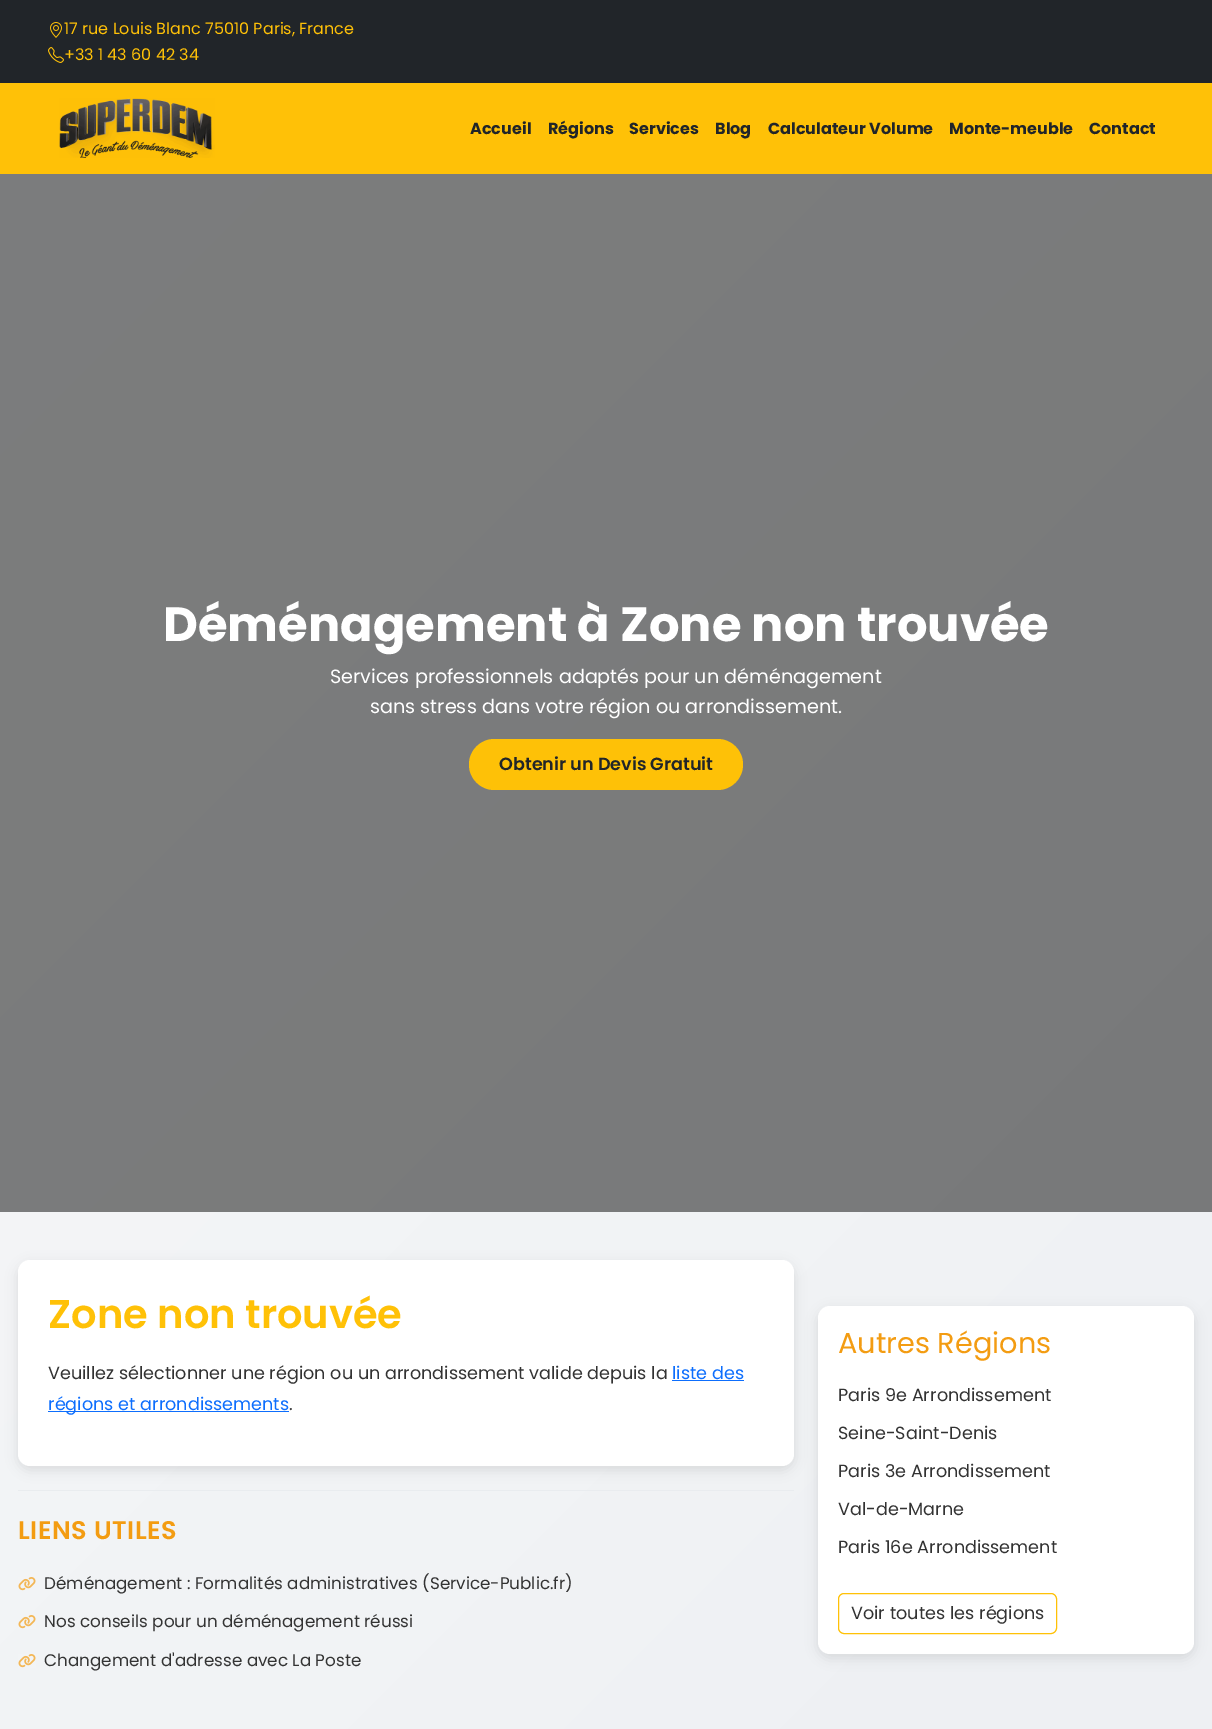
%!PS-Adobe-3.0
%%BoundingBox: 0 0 1212 1729
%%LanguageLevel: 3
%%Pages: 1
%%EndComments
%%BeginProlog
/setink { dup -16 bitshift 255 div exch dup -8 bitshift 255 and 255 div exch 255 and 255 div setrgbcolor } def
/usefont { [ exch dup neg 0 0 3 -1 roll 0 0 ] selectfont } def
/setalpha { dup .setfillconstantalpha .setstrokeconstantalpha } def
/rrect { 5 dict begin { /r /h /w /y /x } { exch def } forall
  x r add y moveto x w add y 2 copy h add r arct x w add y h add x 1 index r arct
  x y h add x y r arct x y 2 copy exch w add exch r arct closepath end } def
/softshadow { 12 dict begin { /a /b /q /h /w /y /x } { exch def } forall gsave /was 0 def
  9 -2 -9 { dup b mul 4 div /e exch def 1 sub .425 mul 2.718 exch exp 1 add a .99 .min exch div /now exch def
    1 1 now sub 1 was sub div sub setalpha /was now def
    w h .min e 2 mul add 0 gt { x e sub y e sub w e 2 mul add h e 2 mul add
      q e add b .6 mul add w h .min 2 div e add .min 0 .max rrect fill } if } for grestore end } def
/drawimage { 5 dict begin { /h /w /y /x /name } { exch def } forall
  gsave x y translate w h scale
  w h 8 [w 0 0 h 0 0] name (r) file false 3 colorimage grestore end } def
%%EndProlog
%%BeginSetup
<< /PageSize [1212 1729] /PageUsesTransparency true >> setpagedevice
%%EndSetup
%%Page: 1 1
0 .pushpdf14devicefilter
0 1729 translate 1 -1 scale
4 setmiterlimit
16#FFFFFF setink
0 0 1212 1729 rectfill
gsave 0 1212 moveto 1212 1212 lineto 1212 1729 lineto 0 1729 lineto closepath clip newpath
<< /ShadingType 2 /ColorSpace /DeviceRGB /Coords [-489 489 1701 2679] /Extend [true true] /Function << /FunctionType 2 /Domain [0 1] /C0 [0.973 0.976 0.98] /C1 [0.914 0.925 0.937] /N 1 >> >> shfill grestore
gsave 0 174 moveto 1212 174 lineto 1212 1212 lineto 0 1212 lineto closepath clip newpath
<< /ShadingType 2 /ColorSpace /DeviceRGB /Coords [-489 489 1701 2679] /Extend [true true] /Function << /FunctionType 2 /Domain [0 1] /C0 [0.486 0.49 0.49] /C1 [0.459 0.463 0.471] /N 1 >> >> shfill grestore
16#212529 setink
0 0 1212 83 rectfill
(img1.raw) 50 22 12 16 drawimage
/Poppins-Regular 16 usefont
16#FFC107 setink
64 34 moveto (17 rue Louis Blanc 75010 Paris, France) show
(img2.raw) 48 47 16 16 drawimage
64 60 moveto (+33 1 43 60 42 34) show
0 83 1212 91 rectfill
(img3.raw) 59 98 156 60 drawimage
/Poppins-Bold 16 usefont
16#212529 setink
[
    [(Accueil) 470 134]
    [(Régions) 548 134]
    [(Services) 629 134]
    [(Blog) 715 134]
    [(Calculateur Volume) 768 134]
    [(Monte-meuble) 949 134]
    [(Contact) 1089 134]
] { aload pop moveto show } forall
/Poppins-Bold 48 usefont
16#FFFFFF setink
163 641 moveto (Déménagement à Zone non trouvée) show
/Poppins-Regular 19.2 usefont
330 683 moveto (Services professionnels adaptés pour un déménagement) show
370 713 moveto (sans stress dans votre région ou arrondissement.) show
16#FEC107 setink
469 739 274 51 25.5 rrect fill
/Poppins-SemiBold 17.6 usefont
16#212529 setink
499 770 moveto (Obtenir un Devis Gratuit) show
16#000000 setink
18 1264 776 206 12 6 0.1 softshadow
16#FFFFFF setink
18 1260 776 206 12 rrect fill
/Poppins-SemiBold 40 usefont
16#FFC107 setink
48 1328 moveto (Zone non trouvée) show
/Poppins-Regular 17.6 usefont
16#333333 setink
48 1379 moveto (Veuillez sélectionner une région ou un arrondissement valide depuis la) show
16#0D6EFD setink
672 1379 moveto (liste des) show
672 1380 72 1 rectfill
48 1411 241 1 rectfill
48 1410 moveto (régions et arrondissements) show
16#333333 setink
289 1410 moveto (.) show
16#E9ECEF setink
18 1490 776 1 rectfill
/Poppins-SemiBold 25.5 usefont
16#F39C12 setink
18 1539 moveto 0.5 0 (LIENS UTILES) ashow
(img4.raw) 18 1577 18 14 drawimage
/Poppins-Regular 16.8 usefont
16#333333 setink
44 1589 moveto (Déménagement : Formalités administratives \(Service-Public.fr\)) show
(img5.raw) 18 1615 18 14 drawimage
44 1627 moveto (Nos conseils pour un déménagement réussi) show
(img5.raw) 18 1654 18 14 drawimage
44 1666 moveto (Changement d'adresse avec La Poste) show
16#000000 setink
818 1310 376 348 12 6 0.1 softshadow
16#FFFFFF setink
818 1306 376 348 12 rrect fill
/Poppins-Regular 28.75 usefont
16#F39C12 setink
838 1353 moveto (Autres Régions) show
/Poppins-Regular 17.6 usefont
16#333333 setink
[
    [(Paris 9e Arrondissement) 838 1401]
    [(Seine-Saint-Denis) 838 1439]
    [(Paris 3e Arrondissement) 838 1477]
    [(Val-de-Marne) 838 1515]
    [(Paris 16e Arrondissement) 838 1553]
] { aload pop moveto show } forall
16#FFC107 setink
838.5 1593.5 218 40 5.5 rrect stroke
16#333333 setink
851 1619 moveto (Voir toutes les régions) show
.poppdf14devicefilter showpage
%%EOF
